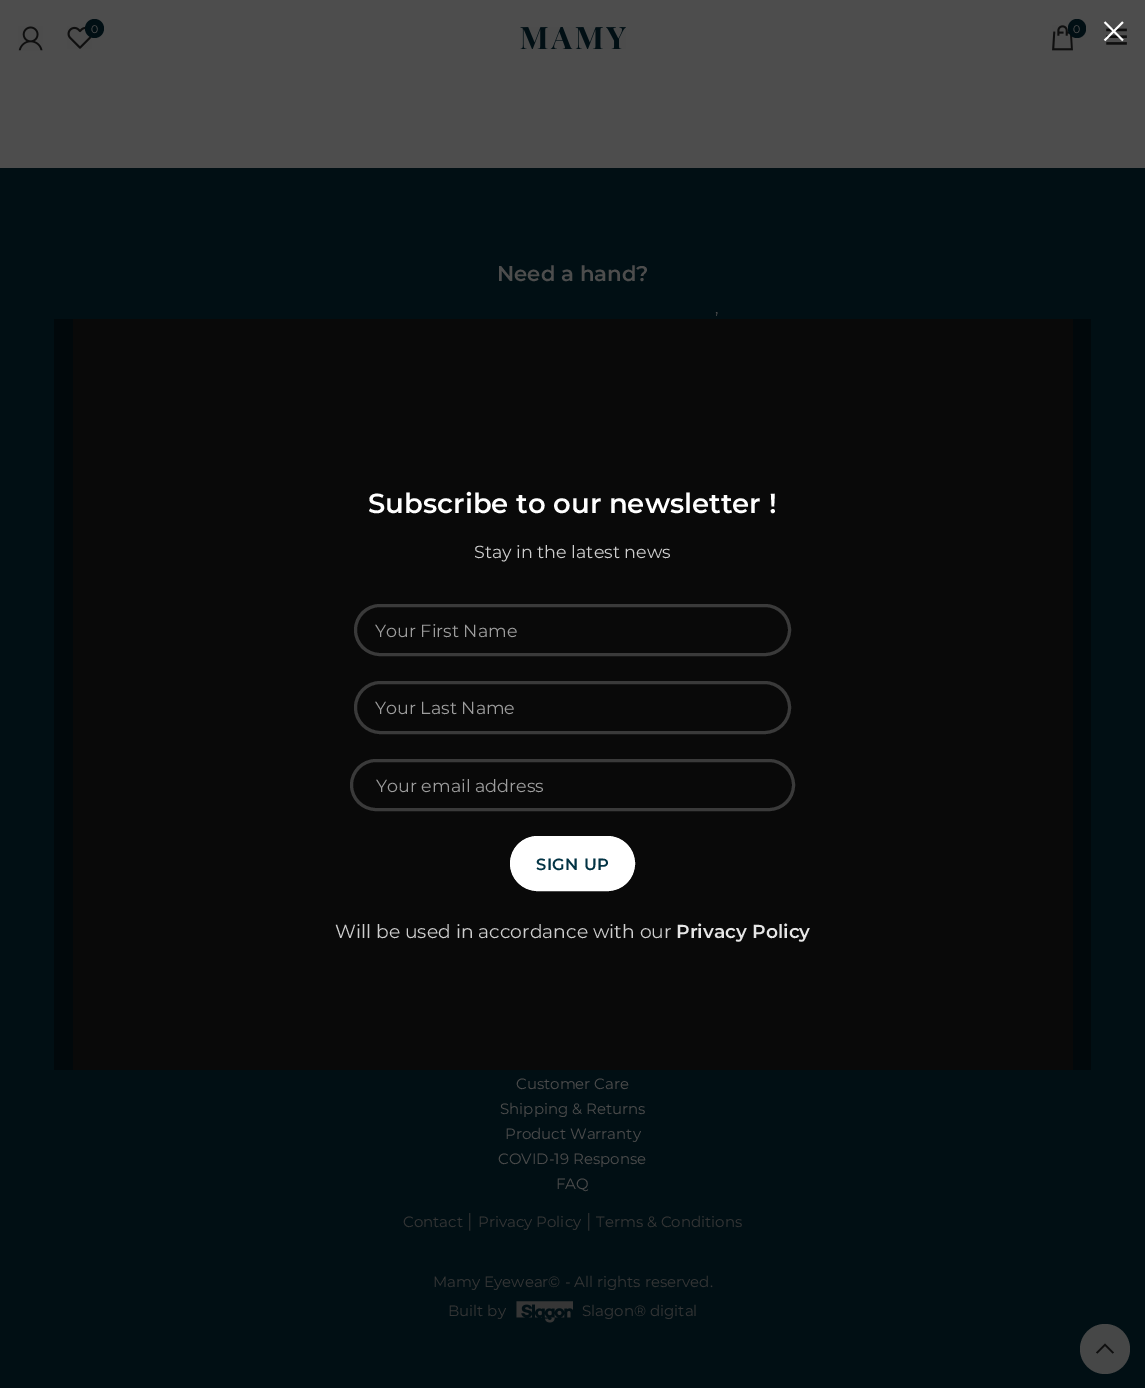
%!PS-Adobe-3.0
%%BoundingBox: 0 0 1145 1388
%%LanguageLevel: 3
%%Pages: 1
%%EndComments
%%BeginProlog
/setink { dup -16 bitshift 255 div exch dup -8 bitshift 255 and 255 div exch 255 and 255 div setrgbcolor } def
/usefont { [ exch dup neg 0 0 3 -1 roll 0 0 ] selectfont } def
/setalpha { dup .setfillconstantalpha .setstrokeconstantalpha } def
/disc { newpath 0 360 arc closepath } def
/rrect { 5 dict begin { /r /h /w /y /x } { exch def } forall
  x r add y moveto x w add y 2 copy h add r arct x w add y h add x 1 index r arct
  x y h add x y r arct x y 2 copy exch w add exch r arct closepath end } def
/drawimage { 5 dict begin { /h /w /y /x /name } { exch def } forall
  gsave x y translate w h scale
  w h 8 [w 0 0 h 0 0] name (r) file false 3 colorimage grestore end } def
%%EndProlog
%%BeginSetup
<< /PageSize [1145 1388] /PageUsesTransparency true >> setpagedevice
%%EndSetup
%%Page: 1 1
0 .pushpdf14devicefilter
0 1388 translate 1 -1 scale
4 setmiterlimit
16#4D4D4D setink
0 0 1145 1388 rectfill
(img1.raw) 18 26 25 25 drawimage
(img2.raw) 67 26 25 23 drawimage
16#010F14 setink
94.5 28.5 9.5 disc fill
/Montserrat-Regular 11 usefont
16#4D4D4D setink
91 33 moveto (0) show
(img3.raw) 520 27 106 22 drawimage
(img4.raw) 1052 25 21 26 drawimage
16#010F14 setink
1068 19 18 19 9 rrect fill
16#4D4D4D setink
1073 33 moveto (0) show
(img5.raw) 1106 28 21 17 drawimage
16#010F14 setink
0 168 1145 1220 rectfill
/Montserrat-SemiBold 21.25 usefont
16#4D4D4D setink
497 281 moveto (Need a hand?) show
/Montserrat-Regular 16.25 usefont
715 324 moveto (’) show
/Montserrat-Regular 15 usefont
[
    [(Customer Care) 516 1089]
    [(Shipping & Returns) 500 1114]
    [(Product Warranty) 505 1139]
    [(COVID-19 Response) 498 1164]
    [(FAQ) 556 1189]
] { aload pop moveto show } forall
16#363636 setink
403 1227 moveto (Contact) show
/Montserrat-Regular 18.75 usefont
467 1227 moveto (|) show
/Montserrat-Regular 15 usefont
478 1227 moveto (Privacy Policy) show
/Montserrat-Regular 18.75 usefont
586 1227 moveto (|) show
/Montserrat-Regular 15 usefont
[
    [(Terms & Conditions) 596 1227]
    [(Mamy Eyewear© - All rights reserved.) 433 1287]
    [(Built by) 448 1316]
] { aload pop moveto show } forall
(img6.raw) 516 1301 57 22 drawimage
582 1316 moveto (Slagon® digital) show
16#111111 setink
73 319 1000 751 rectfill
(img7.raw) 1103 21 21 21 drawimage
0.45 setalpha
16#000000 setink
54 319 1037 751 rectfill
/Montserrat-SemiBold 27.5 usefont
1 setalpha
16#FFFFFF setink
368 513 moveto (Subscribe to our newsletter !) show
/Montserrat-Regular 17.5 usefont
16#CECECE setink
474 558 moveto (Stay in the latest news) show
16#3A3A3A setink
3 setlinewidth
355.5 605.5 434 49 24.5 rrect stroke
16#9D9D9D setink
375 637 moveto (Your First Name) show
16#3A3A3A setink
355.5 682.5 434 50 25 rrect stroke
16#9D9D9D setink
375 714 moveto (Your Last Name) show
16#3A3A3A setink
351.5 760.5 442 49 24.5 rrect stroke
16#9D9D9D setink
376 792 moveto (Your email address) show
16#FFFFFF setink
510.5 836.5 124 54 27 rrect gsave fill grestore
1 setlinewidth
stroke
/Montserrat-SemiBold 16.25 usefont
16#023344 setink
536 870 moveto 0.5 0 (SIGN UP) ashow
/Montserrat-Regular 18.75 usefont
16#CECECE setink
335 938 moveto (Will be used in accordance with our) show
/Montserrat-SemiBold 18.75 usefont
16#E6E6E6 setink
676 938 moveto (Privacy Policy) show
0.9 setalpha
16#4D4D4D setink
1105 1349 25 disc fill
1 setalpha
16#0F0F0F setink
1105 1343.5 moveto 1114 1352.5 lineto 1112.5 1353.5 lineto 1105 1346 lineto 1097.5 1353.5 lineto 1096 1352.5 lineto closepath fill
.poppdf14devicefilter showpage
%%EOF
